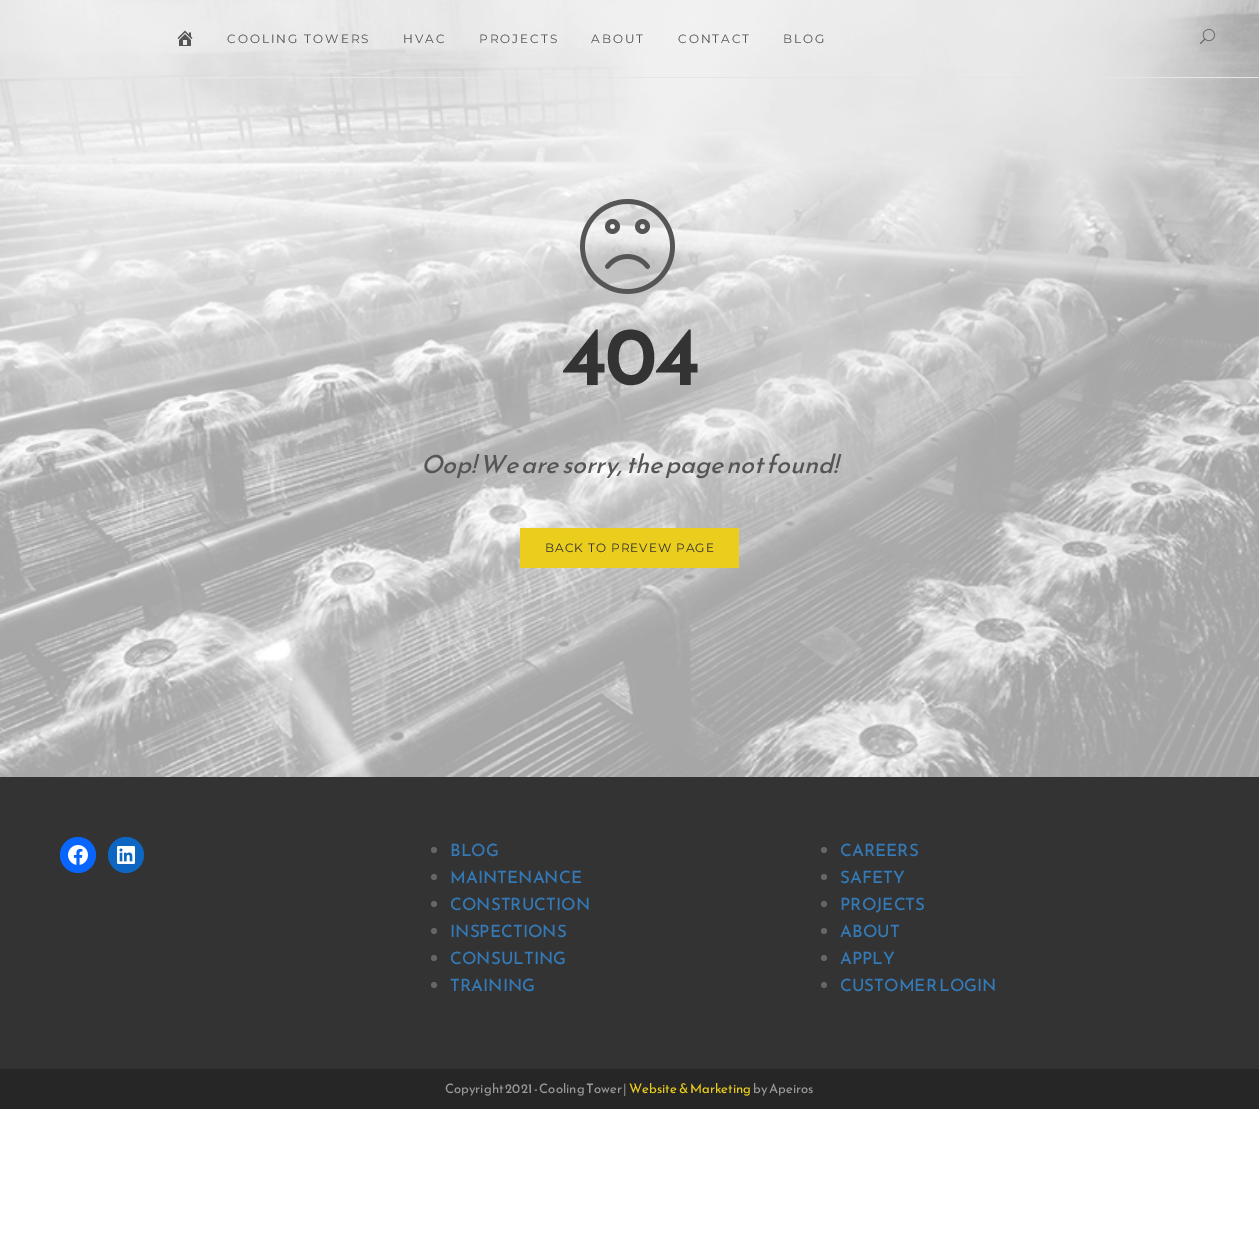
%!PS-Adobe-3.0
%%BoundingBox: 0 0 1259 1240
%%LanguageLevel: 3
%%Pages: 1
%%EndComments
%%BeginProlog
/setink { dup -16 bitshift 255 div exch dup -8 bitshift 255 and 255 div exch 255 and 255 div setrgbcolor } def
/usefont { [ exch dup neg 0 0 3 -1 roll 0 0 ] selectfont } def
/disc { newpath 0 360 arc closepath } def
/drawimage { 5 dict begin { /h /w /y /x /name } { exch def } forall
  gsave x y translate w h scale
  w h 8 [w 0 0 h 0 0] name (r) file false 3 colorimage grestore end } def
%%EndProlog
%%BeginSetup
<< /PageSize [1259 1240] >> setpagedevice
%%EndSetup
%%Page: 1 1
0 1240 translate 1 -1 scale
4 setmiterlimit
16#FFFFFF setink
0 0 1259 1240 rectfill
(img3.raw) 0 0 1259 777 drawimage
16#E5E5E5 setink
0 77 1259 1 rectfill
(img1.raw) 177 30 16 16 drawimage
/Montserrat-Regular 12 usefont
16#555555 setink
227 43 moveto 2 0 (COOLING TOWERS) ashow
403 43 moveto 2 0 (HVAC) ashow
479 43 moveto 2 0 (PROJECTS) ashow
591 43 moveto 2 0 (ABOUT) ashow
678 43 moveto 2 0 (CONTACT) ashow
783 43 moveto 2 0 (BLOG) ashow
(img2.raw) 1200 29 15 15 drawimage
(img4.raw) 580 199 95 95 drawimage
/ReemKufi-Bold 80 usefont
16#333333 setink
562 385 moveto (404) show
/ReemKufi-Italic 25 usefont
16#555555 setink
421 473 moveto (Oop! We are sorry, the page not found!) show
16#EBCD1E setink
520 528 219 40 rectfill
/Montserrat-Regular 12 usefont
16#333333 setink
545 552 moveto 1 0 (BACK TO PREVEW PAGE) ashow
0 777 1259 292 rectfill
16#0866FF setink
78 855 18 disc fill
(img5.raw) 68 845 20 20 drawimage
16#0D66C2 setink
126 855 18 disc fill
(img6.raw) 117 846 18 18 drawimage
16#666666 setink
434 850 3 disc fill
/ReemKufi-Regular 17 usefont
16#337AB7 setink
450 856 moveto (BLOG) show
16#666666 setink
434 877 3 disc fill
16#337AB7 setink
450 883 moveto (MAINTENANCE) show
16#666666 setink
434 904 3 disc fill
16#337AB7 setink
450 910 moveto (CONSTRUCTION) show
16#666666 setink
434 931 3 disc fill
16#337AB7 setink
450 937 moveto (INSPECTIONS) show
16#666666 setink
434 958 3 disc fill
16#337AB7 setink
450 964 moveto (CONSULTING) show
16#666666 setink
434 985 3 disc fill
16#337AB7 setink
450 991 moveto (TRAINING) show
16#666666 setink
824 850 3 disc fill
16#337AB7 setink
840 856 moveto (CAREERS) show
16#666666 setink
824 877 3 disc fill
16#337AB7 setink
840 883 moveto (SAFETY) show
16#666666 setink
824 904 3 disc fill
16#337AB7 setink
840 910 moveto (PROJECTS) show
16#666666 setink
824 931 3 disc fill
16#337AB7 setink
840 937 moveto (ABOUT) show
16#666666 setink
824 958 3 disc fill
16#337AB7 setink
840 964 moveto (APPLY) show
16#666666 setink
824 985 3 disc fill
16#337AB7 setink
840 991 moveto (CUSTOMER LOGIN) show
16#262626 setink
0 1069 1259 40 rectfill
/ReemKufi-Regular 13 usefont
16#999999 setink
445 1093 moveto (Copyright 2021 - Cooling Tower |) show
16#EBCD1E setink
629 1093 moveto (Website & Marketing) show
16#999999 setink
753 1093 moveto (by Apeiros) show
showpage
%%EOF
